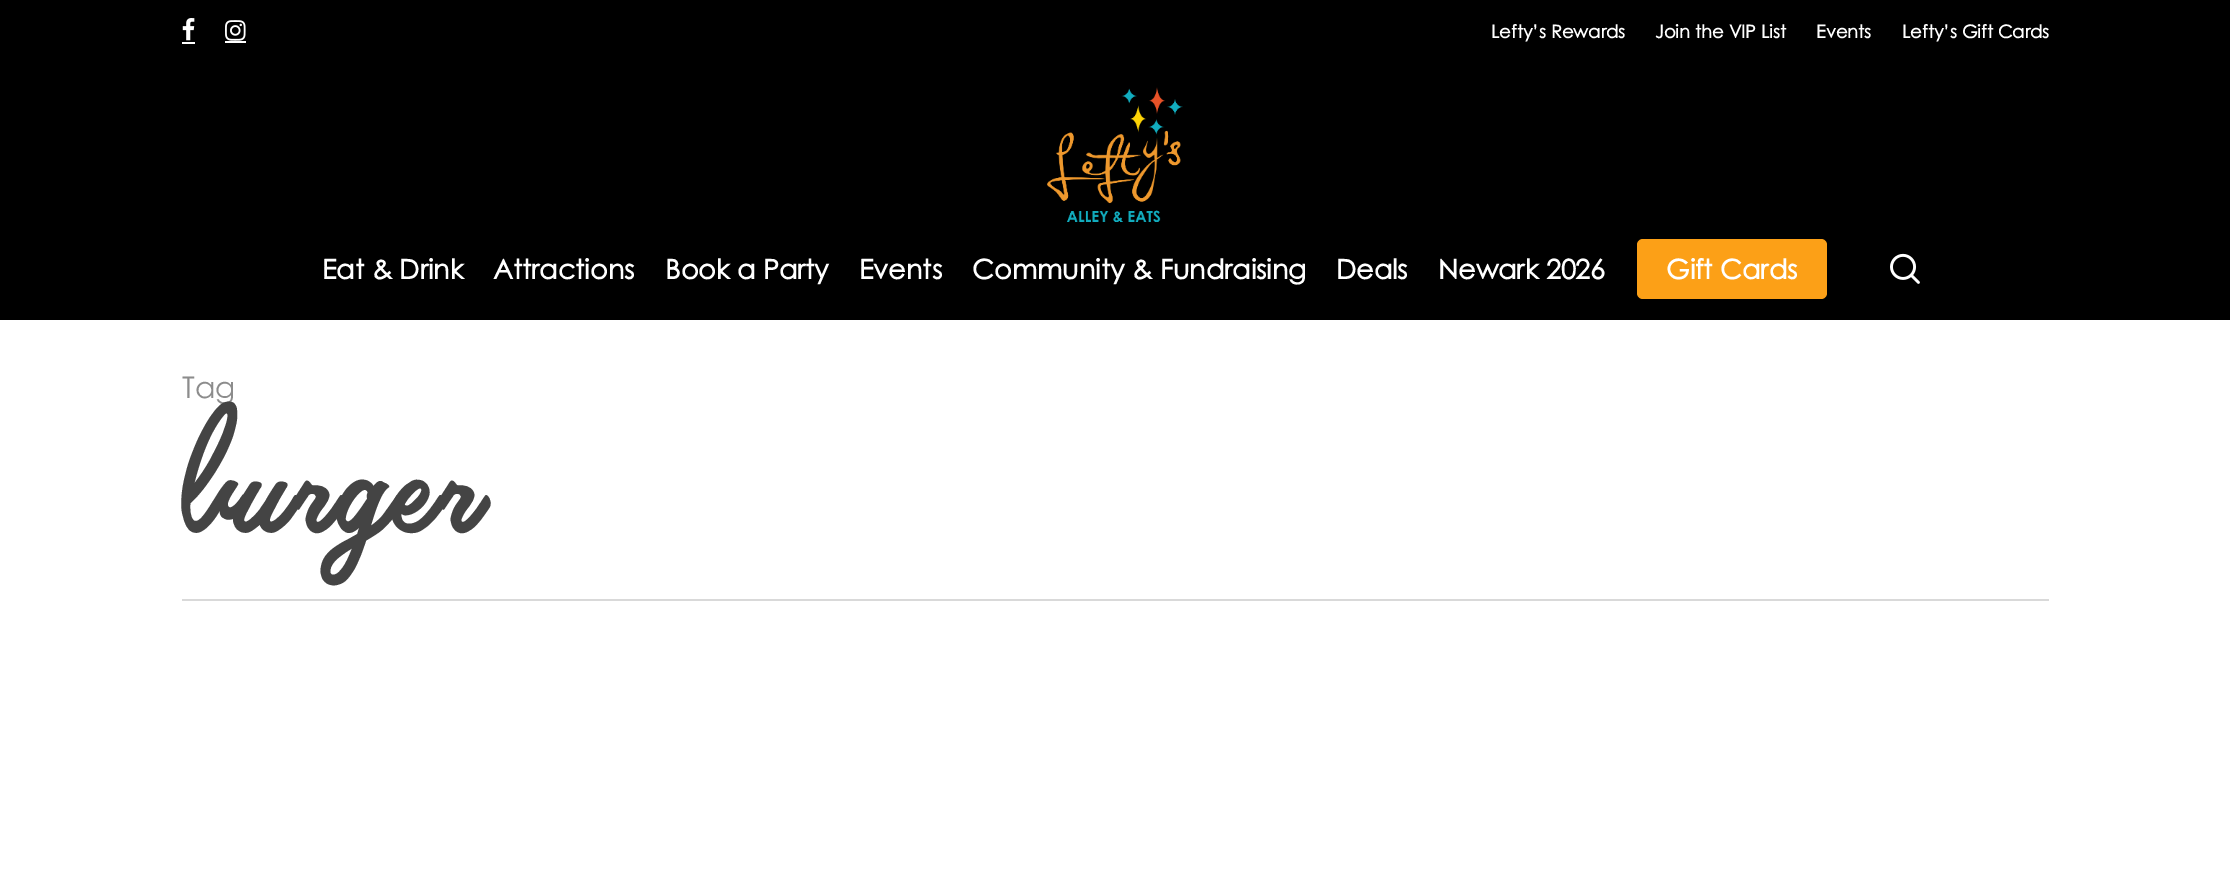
%!PS-Adobe-3.0
%%BoundingBox: 0 0 2230 892
%%LanguageLevel: 3
%%Pages: 1
%%EndComments
%%BeginProlog
/setink { dup -16 bitshift 255 div exch dup -8 bitshift 255 and 255 div exch 255 and 255 div setrgbcolor } def
/usefont { [ exch dup neg 0 0 3 -1 roll 0 0 ] selectfont } def
/rrect { 5 dict begin { /r /h /w /y /x } { exch def } forall
  x r add y moveto x w add y 2 copy h add r arct x w add y h add x 1 index r arct
  x y h add x y r arct x y 2 copy exch w add exch r arct closepath end } def
/drawimage { 5 dict begin { /h /w /y /x /name } { exch def } forall
  gsave x y translate w h scale
  w h 8 [w 0 0 h 0 0] name (r) file false 3 colorimage grestore end } def
%%EndProlog
%%BeginSetup
<< /PageSize [2230 892] >> setpagedevice
%%EndSetup
%%Page: 1 1
0 892 translate 1 -1 scale
4 setmiterlimit
16#FFFFFF setink
0 0 2230 892 rectfill
16#000000 setink
0 0 2230 320 rectfill
(img1.raw) 182 18 13 23 drawimage
16#FFFFFF setink
182 42 13 2 rectfill
(img2.raw) 225 20 21 21 drawimage
225 41 21 2 rectfill
/CenturyGothic-Bold 18 usefont
[
    [(Lefty’s Rewards) 1491 38]
    [(Join the VIP List) 1655 38]
    [(Events) 1816 38]
    [(Lefty’s Gift Cards) 1902 38]
] { aload pop moveto show } forall
(img3.raw) 1047 87 136 135 drawimage
/CenturyGothic-Bold 27 usefont
[
    [(Eat & Drink) 322 279]
    [(Attractions) 493 279]
    [(Book a Party) 665 279]
    [(Events) 859 279]
    [(Community & Fundraising) 972 279]
    [(Deals) 1336 279]
    [(Newark 2026) 1438 279]
] { aload pop moveto show } forall
16#FCA017 setink
1637 239 190 60 6 rrect fill
16#FFFFFF setink
1666 279 moveto (Gift Cards) show
(img4.raw) 1890 253 30 31 drawimage
16#D9D9D9 setink
182 599 1867 2 rectfill
/CenturyGothic-Regular 30 usefont
16#8C8C8C setink
182 398 moveto (Tag) show
/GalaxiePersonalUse-Regular 135 usefont
16#444444 setink
182 533 moveto 1.5 0 (burger) ashow
showpage
%%EOF
